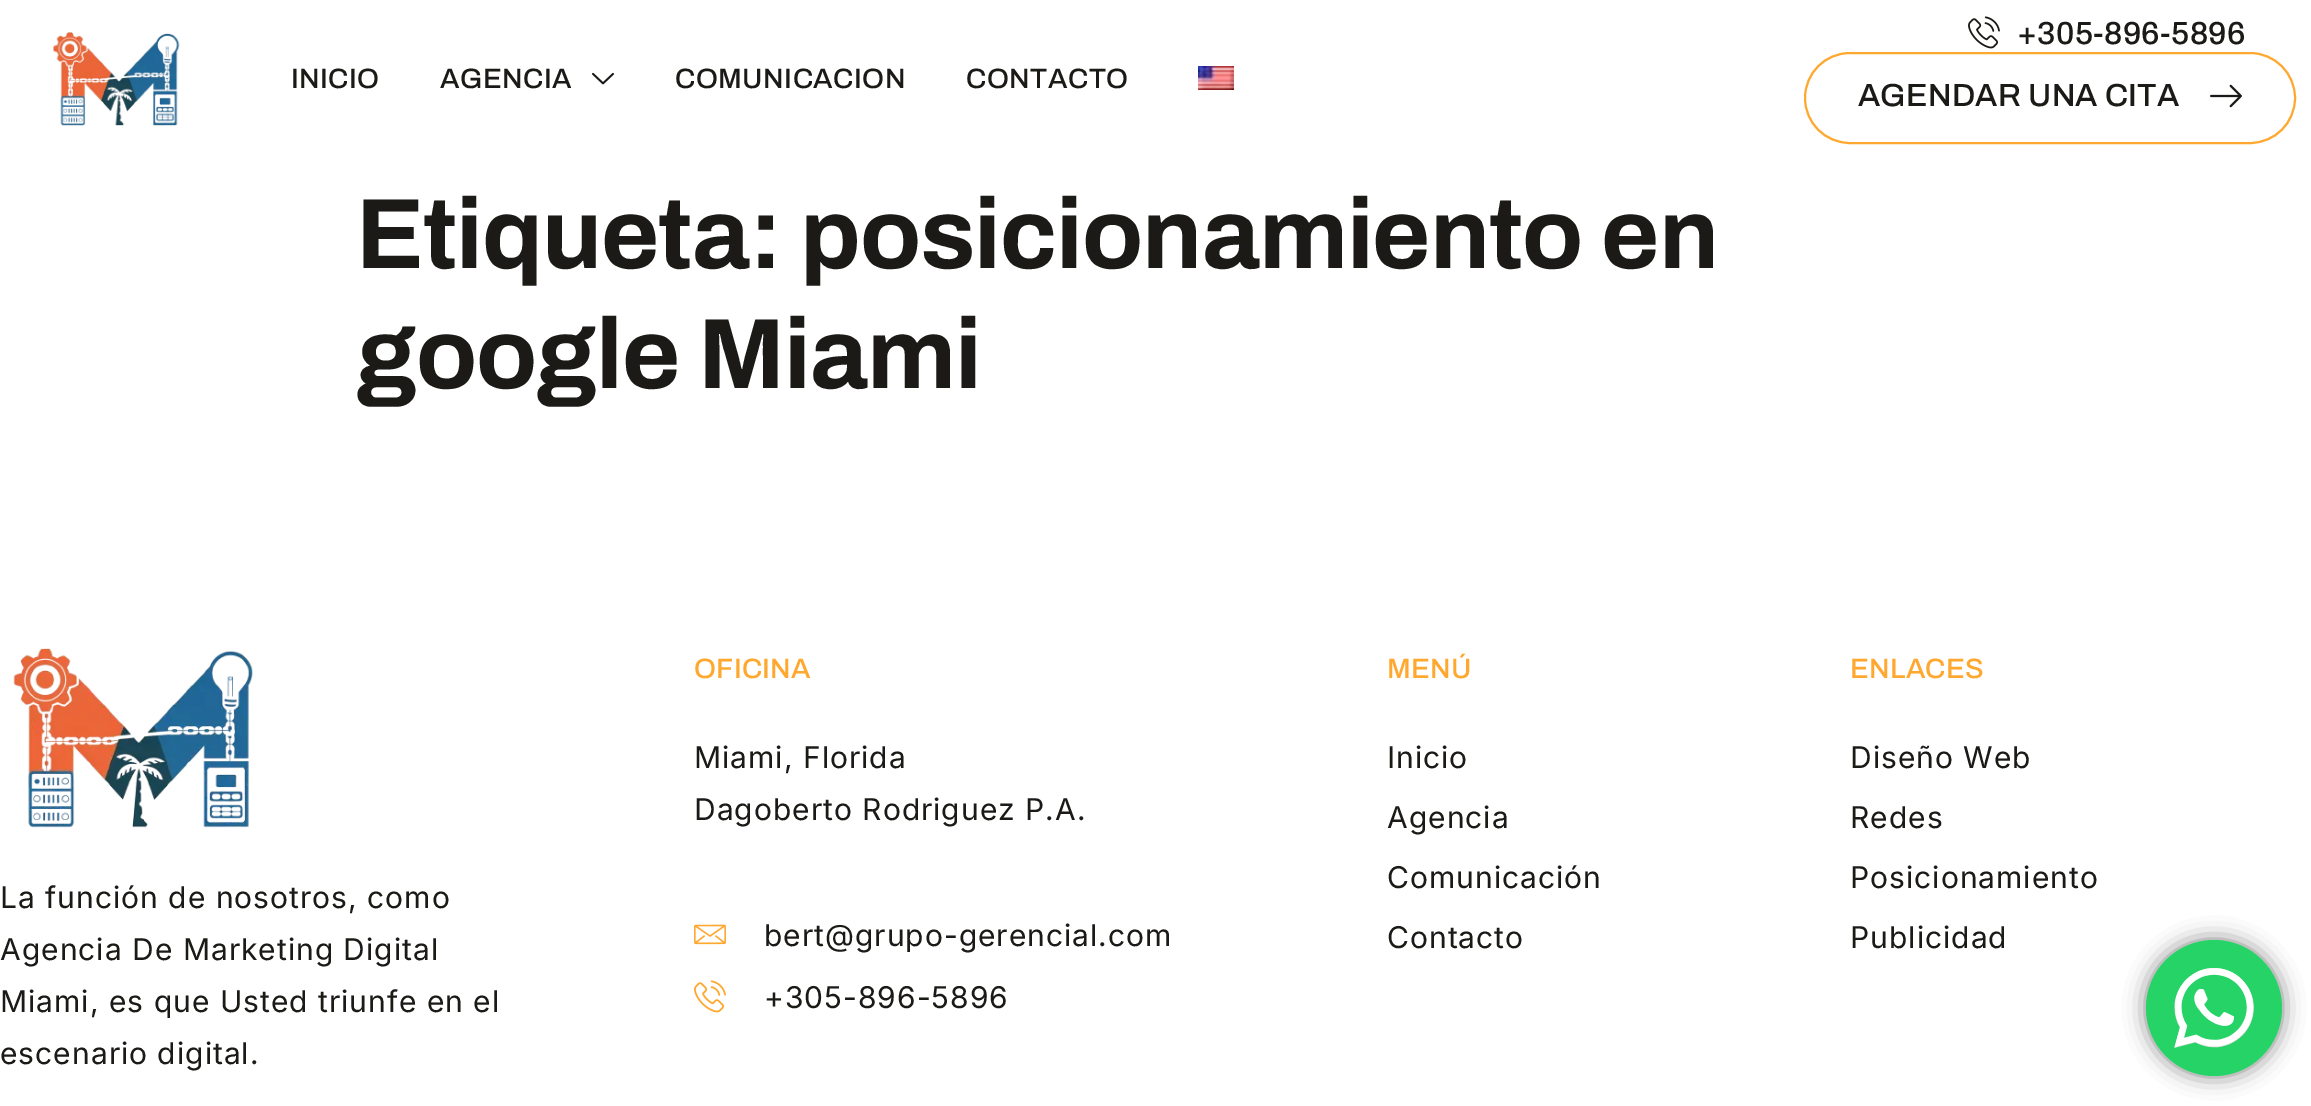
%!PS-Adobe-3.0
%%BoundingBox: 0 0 2311 1106
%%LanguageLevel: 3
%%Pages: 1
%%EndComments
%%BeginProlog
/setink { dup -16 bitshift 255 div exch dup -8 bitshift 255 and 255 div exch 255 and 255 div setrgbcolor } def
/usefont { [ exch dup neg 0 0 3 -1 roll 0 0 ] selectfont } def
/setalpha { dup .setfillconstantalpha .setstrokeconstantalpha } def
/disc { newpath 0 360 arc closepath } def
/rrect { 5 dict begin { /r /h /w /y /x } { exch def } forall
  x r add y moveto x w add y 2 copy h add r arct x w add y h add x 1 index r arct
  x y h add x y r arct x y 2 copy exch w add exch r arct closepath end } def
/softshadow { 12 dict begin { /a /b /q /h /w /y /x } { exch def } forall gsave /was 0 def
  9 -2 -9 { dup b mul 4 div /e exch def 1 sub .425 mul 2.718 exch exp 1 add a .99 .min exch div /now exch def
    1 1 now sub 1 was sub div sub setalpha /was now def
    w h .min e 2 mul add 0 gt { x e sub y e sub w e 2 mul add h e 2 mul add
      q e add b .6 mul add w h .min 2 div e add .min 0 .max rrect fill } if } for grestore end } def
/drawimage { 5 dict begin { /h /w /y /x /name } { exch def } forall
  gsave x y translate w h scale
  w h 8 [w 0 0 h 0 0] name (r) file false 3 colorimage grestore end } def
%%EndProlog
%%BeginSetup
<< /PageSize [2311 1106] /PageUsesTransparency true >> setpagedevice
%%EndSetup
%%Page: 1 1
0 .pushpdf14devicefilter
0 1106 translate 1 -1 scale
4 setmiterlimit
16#FFFFFF setink
0 0 2311 1106 rectfill
(img1.raw) 52 32 128 94 drawimage
/Archivo-Medium 28 usefont
16#1B1A17 setink
291 88 moveto 0.5 0 (INICIO) ashow
440 88 moveto 0.5 0 (AGENCIA) ashow
(img2.raw) 592 72 22 13 drawimage
675 88 moveto 0.5 0 (COMUNICACION) ashow
966 88 moveto 0.5 0 (CONTACTO) ashow
(img3.raw) 1198 66 36 24 drawimage
(img4.raw) 1968 16 32 33 drawimage
/Archivo-Medium 32 usefont
2017 44 moveto 0.25 0 (+305-896-5896) ashow
16#FEA82F setink
2 setlinewidth
1805 53 490 90 45 rrect stroke
16#1B1A17 setink
1858 106 moveto 0.25 0 (AGENDAR UNA CITA) ashow
(img5.raw) 2210 84 32 24 drawimage
/Archivo-Bold 100 usefont
356 268 moveto -1 0 (Etiqueta: posicionamiento en) ashow
356 388 moveto -1 0 (google Miami) ashow
/Archivo-Medium 28 usefont
16#FEA82F setink
694 678 moveto 0.25 0 (OFICINA) ashow
/Inter-Regular 30 usefont
16#1B1A17 setink
694 768 moveto 1 0 (Miami, Florida) ashow
694 820 moveto 1 0 (Dagoberto Rodriguez P.A.) ashow
(img6.raw) 694 924 32 21 drawimage
764 946 moveto 1 0 (bert@grupo-gerencial.com) ashow
(img7.raw) 694 980 32 33 drawimage
764 1008 moveto 1 0 (+305-896-5896) ashow
/Archivo-Medium 28 usefont
16#FEA82F setink
1387 678 moveto 0.25 0 (MENÚ) ashow
/Inter-Regular 30 usefont
16#1B1A17 setink
1387 768 moveto 1 0 (Inicio) ashow
1387 828 moveto 1 0 (Agencia) ashow
1387 888 moveto 1 0 (Comunicación) ashow
1387 948 moveto 1 0 (Contacto) ashow
/Archivo-Medium 28 usefont
16#FEA82F setink
1850 678 moveto 0.25 0 (ENLACES) ashow
/Inter-Regular 30 usefont
16#1B1A17 setink
1850 768 moveto 1 0 (Diseño Web) ashow
1850 828 moveto 1 0 (Redes) ashow
1850 888 moveto 1 0 (Posicionamiento) ashow
1850 948 moveto 1 0 (Publicidad) ashow
(img8.raw) 13 648 240 180 drawimage
0 908 moveto 1 0 (La función de nosotros, como) ashow
0 960 moveto 1 0 (Agencia De Marketing Digital) ashow
0 1012 moveto 1 0 (Miami, es que Usted triunfe en el) ashow
0 1064 moveto 1 0 (escenario digital.) ashow
16#000000 setink
2146 940 136 136 68 11 0.5 softshadow
16#25D366 setink
2214 1008 68 disc fill
(img9.raw) 2174 968 80 80 drawimage
.poppdf14devicefilter showpage
%%EOF
